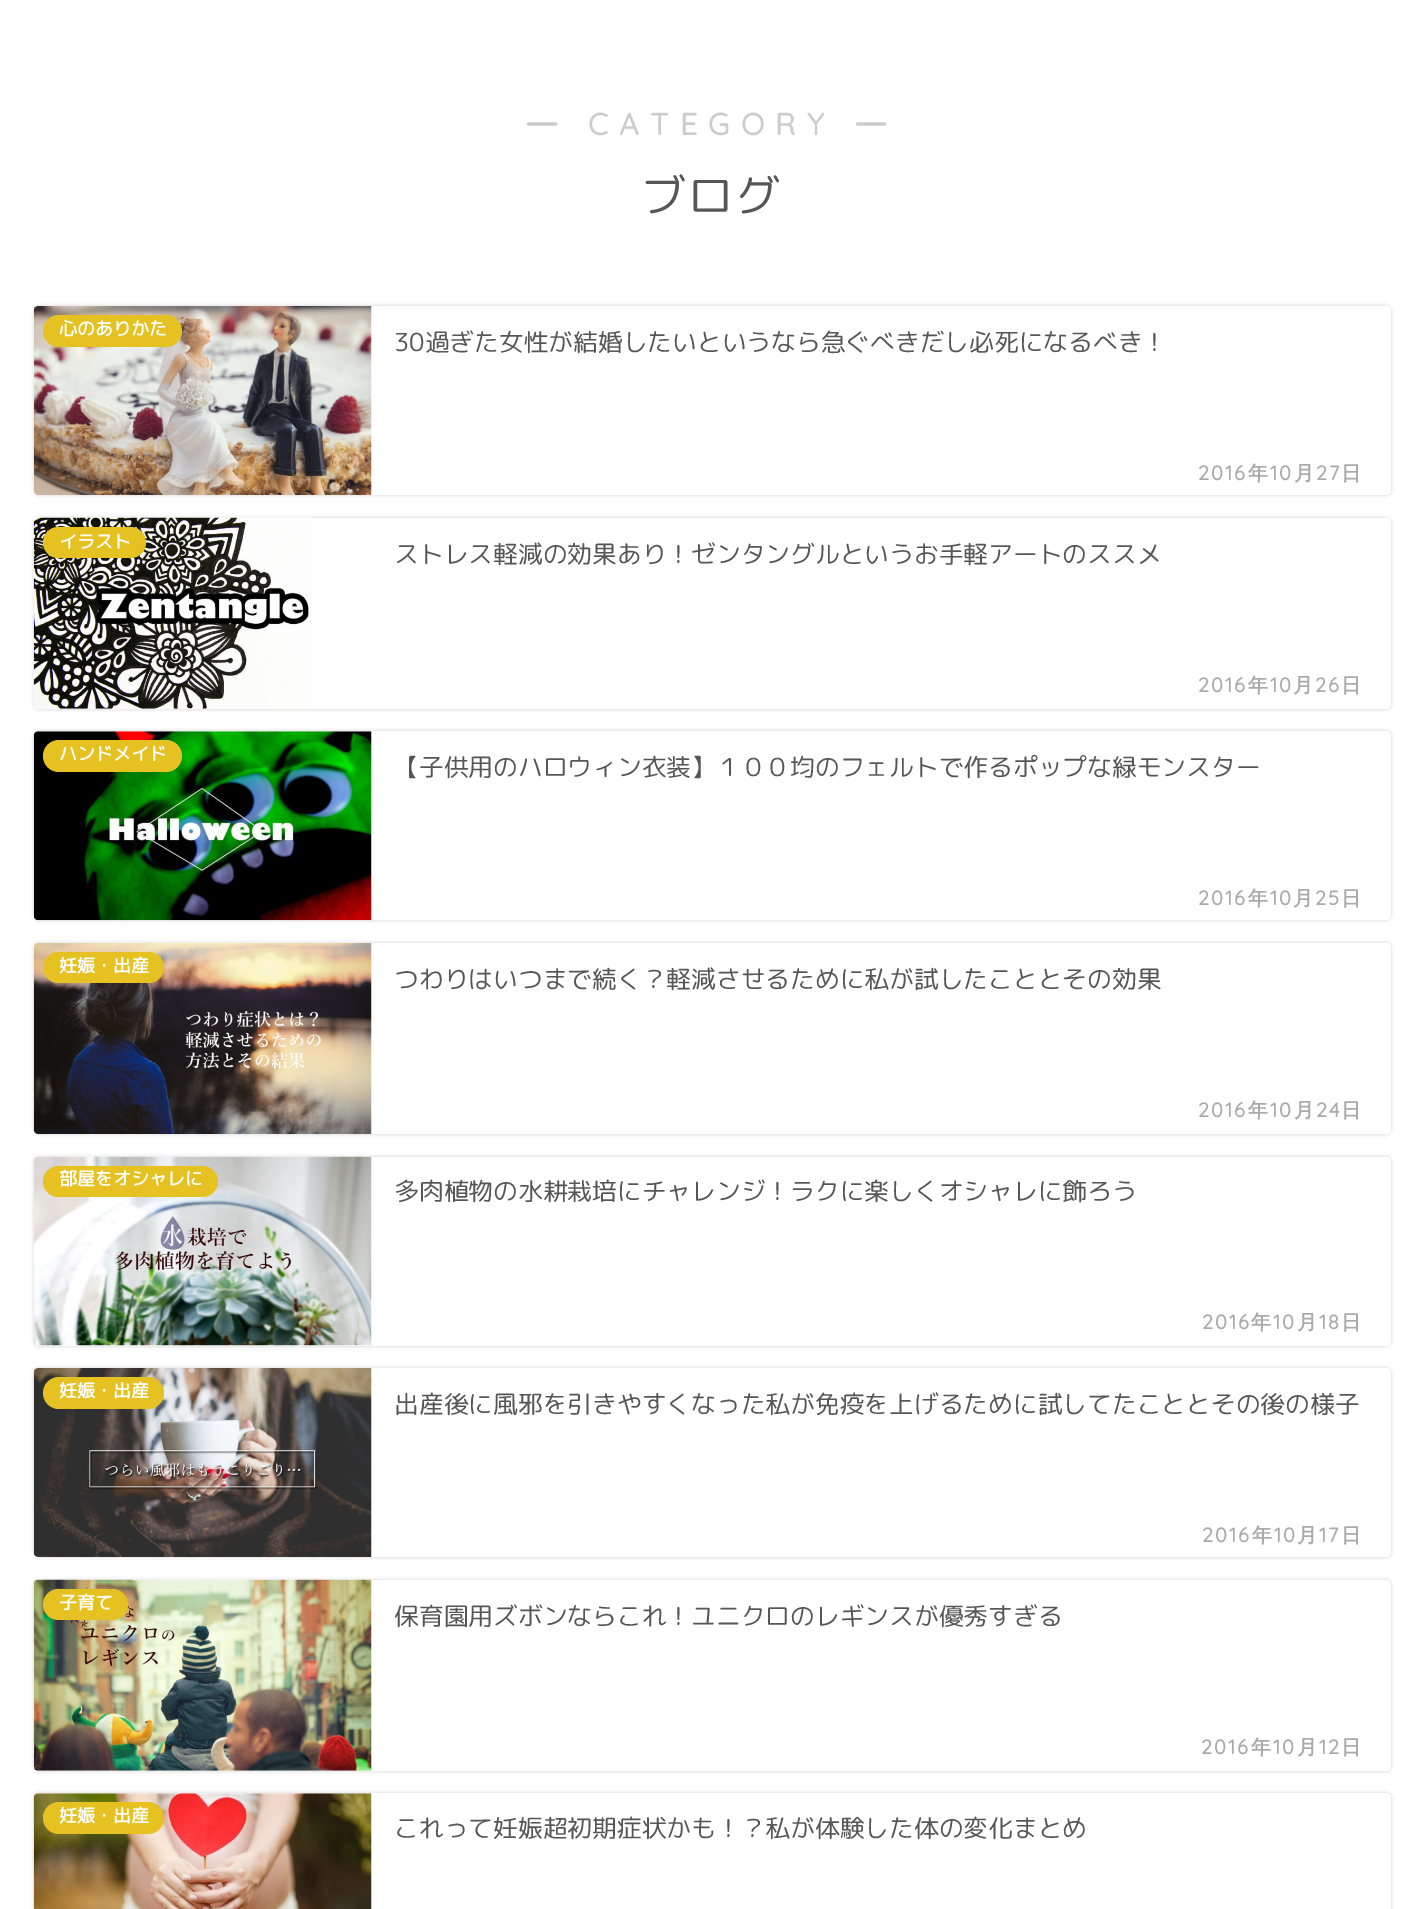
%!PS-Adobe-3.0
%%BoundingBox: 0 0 1424 1909
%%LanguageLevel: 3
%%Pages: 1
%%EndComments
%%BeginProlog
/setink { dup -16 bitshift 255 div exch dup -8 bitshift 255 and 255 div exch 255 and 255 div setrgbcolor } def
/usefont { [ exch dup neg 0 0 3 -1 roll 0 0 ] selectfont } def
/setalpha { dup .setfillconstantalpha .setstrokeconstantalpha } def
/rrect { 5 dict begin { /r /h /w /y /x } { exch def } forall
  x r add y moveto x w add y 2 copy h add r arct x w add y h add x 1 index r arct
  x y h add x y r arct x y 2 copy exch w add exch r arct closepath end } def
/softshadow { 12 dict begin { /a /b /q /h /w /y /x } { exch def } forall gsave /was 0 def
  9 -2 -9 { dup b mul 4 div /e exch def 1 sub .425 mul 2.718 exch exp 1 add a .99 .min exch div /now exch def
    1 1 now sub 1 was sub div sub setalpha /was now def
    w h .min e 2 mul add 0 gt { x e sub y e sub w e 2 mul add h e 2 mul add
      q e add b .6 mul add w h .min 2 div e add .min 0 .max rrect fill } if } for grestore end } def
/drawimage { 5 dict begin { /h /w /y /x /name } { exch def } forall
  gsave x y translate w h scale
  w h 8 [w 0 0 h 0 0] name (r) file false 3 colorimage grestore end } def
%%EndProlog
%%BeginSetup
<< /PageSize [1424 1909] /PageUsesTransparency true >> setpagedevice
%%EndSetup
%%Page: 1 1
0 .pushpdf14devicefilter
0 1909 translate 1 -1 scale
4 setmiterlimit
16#FFFFFF setink
0 0 1424 1909 rectfill
/RoundedMplus1cBold-Bold 30.5 usefont
16#CCCCCC setink
527 135 moveto 11.25 0 (―) ashow
/Quicksand-Bold 30.5 usefont
588 135 moveto 11.25 0 (CATEGORY) ashow
/RoundedMplus1cBold-Bold 30.5 usefont
856 135 moveto 11.25 0 (―) ashow
/RoundedMplus1c-Regular 45 usefont
16#565656 setink
641 212 moveto 2 0 (ブログ) ashow
16#000000 setink
34 306 1357 189 5 2 0.18 softshadow
16#FFFFFF setink
34 306 1357 189 5 rrect fill
(img1.raw) 33 306 339 189 drawimage
16#E5C122 setink
43 315 139 32 16 rrect fill
/RoundedMplus1c-Bold 18 usefont
16#FFFFFF setink
59 335 moveto (心のありかた) show
/RoundedMplus1c-Regular 24.75 usefont
16#565656 setink
394 351 moveto (30過ぎた女性が結婚したいというなら急ぐべきだし必死になるべき！) show
/Quicksand-Bold 20 usefont
16#AAAAAA setink
1198 480 moveto 2 0 (2016) ashow
/WenQuanYiZenHei-Bold 20 usefont
1248 480 moveto 2 0 (年) ashow
/Quicksand-Bold 20 usefont
1270 480 moveto 2 0 (10) ashow
/WenQuanYiZenHei-Bold 20 usefont
1294 480 moveto 2 0 (月) ashow
/Quicksand-Bold 20 usefont
1316 480 moveto 2 0 (27) ashow
/WenQuanYiZenHei-Bold 20 usefont
1341 480 moveto 2 0 (日) ashow
16#000000 setink
34 518 1357 191 5 2 0.18 softshadow
16#FFFFFF setink
34 518 1357 191 5 rrect fill
(img2.raw) 33 517 279 192 drawimage
16#E5C122 setink
43 527 103 31 15.5 rrect fill
/RoundedMplus1c-Bold 18 usefont
16#FFFFFF setink
59 548 moveto (イラスト) show
/RoundedMplus1c-Regular 24.75 usefont
16#565656 setink
394 563 moveto (ストレス軽減の効果あり！ゼンタングルというお手軽アートのススメ) show
/Quicksand-Bold 20 usefont
16#AAAAAA setink
1198 692 moveto 2 0 (2016) ashow
/WenQuanYiZenHei-Bold 20 usefont
1248 692 moveto 2 0 (年) ashow
/Quicksand-Bold 20 usefont
1270 692 moveto 2 0 (10) ashow
/WenQuanYiZenHei-Bold 20 usefont
1293 692 moveto 2 0 (月) ashow
/Quicksand-Bold 20 usefont
1315 692 moveto 2 0 (26) ashow
/WenQuanYiZenHei-Bold 20 usefont
1341 692 moveto 2 0 (日) ashow
16#000000 setink
34 731 1357 189 5 2 0.18 softshadow
16#FFFFFF setink
34 731 1357 189 5 rrect fill
(img3.raw) 33 731 339 190 drawimage
16#E5C122 setink
43 740 139 32 16 rrect fill
/RoundedMplus1c-Bold 18 usefont
16#FFFFFF setink
59 760 moveto (ハンドメイド) show
/RoundedMplus1c-Regular 24.75 usefont
16#565656 setink
394 776 moveto (【子供用のハロウィン衣装】１００均のフェルトで作るポップな緑モンスター) show
/Quicksand-Bold 20 usefont
16#AAAAAA setink
1198 905 moveto 2 0 (2016) ashow
/WenQuanYiZenHei-Bold 20 usefont
1248 905 moveto 2 0 (年) ashow
/Quicksand-Bold 20 usefont
1270 905 moveto 2 0 (10) ashow
/WenQuanYiZenHei-Bold 20 usefont
1293 905 moveto 2 0 (月) ashow
/Quicksand-Bold 20 usefont
1315 905 moveto 2 0 (25) ashow
/WenQuanYiZenHei-Bold 20 usefont
1341 905 moveto 2 0 (日) ashow
16#000000 setink
34 943 1357 191 5 2 0.18 softshadow
16#FFFFFF setink
34 943 1357 191 5 rrect fill
(img4.raw) 33 942 339 192 drawimage
16#E5C122 setink
43 952 121 31 15.5 rrect fill
/RoundedMplus1c-Bold 18 usefont
16#FFFFFF setink
59 972 moveto (妊娠・出産) show
/RoundedMplus1c-Regular 24.75 usefont
16#565656 setink
394 988 moveto (つわりはいつまで続く？軽減させるために私が試したこととその効果) show
/Quicksand-Bold 20 usefont
16#AAAAAA setink
1198 1117 moveto 2 0 (2016) ashow
/WenQuanYiZenHei-Bold 20 usefont
1248 1117 moveto 2 0 (年) ashow
/Quicksand-Bold 20 usefont
1270 1117 moveto 2 0 (10) ashow
/WenQuanYiZenHei-Bold 20 usefont
1294 1117 moveto 2 0 (月) ashow
/Quicksand-Bold 20 usefont
1316 1117 moveto 2 0 (24) ashow
/WenQuanYiZenHei-Bold 20 usefont
1341 1117 moveto 2 0 (日) ashow
16#000000 setink
34 1157 1357 189 5 2 0.18 softshadow
16#FFFFFF setink
34 1157 1357 189 5 rrect fill
(img5.raw) 34 1156 338 190 drawimage
16#E5C122 setink
43 1166 175 31 15.5 rrect fill
/RoundedMplus1c-Bold 18 usefont
16#FFFFFF setink
59 1185 moveto (部屋をオシャレに) show
/RoundedMplus1c-Regular 24.75 usefont
16#565656 setink
394 1200 moveto (多肉植物の水耕栽培にチャレンジ！ラクに楽しくオシャレに飾ろう) show
/Quicksand-Bold 20 usefont
16#AAAAAA setink
1202 1329 moveto 2 0 (2016) ashow
/WenQuanYiZenHei-Bold 20 usefont
1251 1329 moveto 2 0 (年) ashow
/Quicksand-Bold 20 usefont
1273 1329 moveto 2 0 (10) ashow
/WenQuanYiZenHei-Bold 20 usefont
1297 1329 moveto 2 0 (月) ashow
/Quicksand-Bold 20 usefont
1319 1329 moveto 2 0 (18) ashow
/WenQuanYiZenHei-Bold 20 usefont
1341 1329 moveto 2 0 (日) ashow
16#000000 setink
34 1368 1357 189 5 2 0.18 softshadow
16#FFFFFF setink
34 1368 1357 189 5 rrect fill
(img6.raw) 33 1368 339 189 drawimage
16#E5C122 setink
43 1377 121 32 16 rrect fill
/RoundedMplus1c-Bold 18 usefont
16#FFFFFF setink
59 1397 moveto (妊娠・出産) show
/RoundedMplus1c-Regular 24.75 usefont
16#565656 setink
394 1413 moveto (出産後に風邪を引きやすくなった私が免疫を上げるために試してたこととその後の様子) show
/Quicksand-Bold 20 usefont
16#AAAAAA setink
1202 1542 moveto 2 0 (2016) ashow
/WenQuanYiZenHei-Bold 20 usefont
1252 1542 moveto 2 0 (年) ashow
/Quicksand-Bold 20 usefont
1274 1542 moveto 2 0 (10) ashow
/WenQuanYiZenHei-Bold 20 usefont
1297 1542 moveto 2 0 (月) ashow
/Quicksand-Bold 20 usefont
1319 1542 moveto 2 0 (17) ashow
/WenQuanYiZenHei-Bold 20 usefont
1341 1542 moveto 2 0 (日) ashow
16#000000 setink
34 1580 1357 191 5 2 0.18 softshadow
16#FFFFFF setink
34 1580 1357 191 5 rrect fill
(img7.raw) 33 1579 339 192 drawimage
16#E5C122 setink
43 1589 85 31 15.5 rrect fill
/RoundedMplus1c-Bold 18 usefont
16#FFFFFF setink
59 1609 moveto (子育て) show
/RoundedMplus1c-Regular 24.75 usefont
16#565656 setink
394 1625 moveto (保育園用ズボンならこれ！ユニクロのレギンスが優秀すぎる) show
/Quicksand-Bold 20 usefont
16#AAAAAA setink
1201 1754 moveto 2 0 (2016) ashow
/WenQuanYiZenHei-Bold 20 usefont
1251 1754 moveto 2 0 (年) ashow
/Quicksand-Bold 20 usefont
1273 1754 moveto 2 0 (10) ashow
/WenQuanYiZenHei-Bold 20 usefont
1297 1754 moveto 2 0 (月) ashow
/Quicksand-Bold 20 usefont
1319 1754 moveto 2 0 (12) ashow
/WenQuanYiZenHei-Bold 20 usefont
1341 1754 moveto 2 0 (日) ashow
16#000000 setink
34 1793 1357 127 5 2 0.18 softshadow
16#FFFFFF setink
34 1793 1357 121 5 rrect fill
(img8.raw) 33 1793 339 116 drawimage
16#E5C122 setink
43 1802 121 32 16 rrect fill
/RoundedMplus1c-Bold 18 usefont
16#FFFFFF setink
59 1822 moveto (妊娠・出産) show
/RoundedMplus1c-Regular 24.75 usefont
16#565656 setink
394 1837 moveto (これって妊娠超初期症状かも！？私が体験した体の変化まとめ) show
.poppdf14devicefilter showpage
%%EOF
